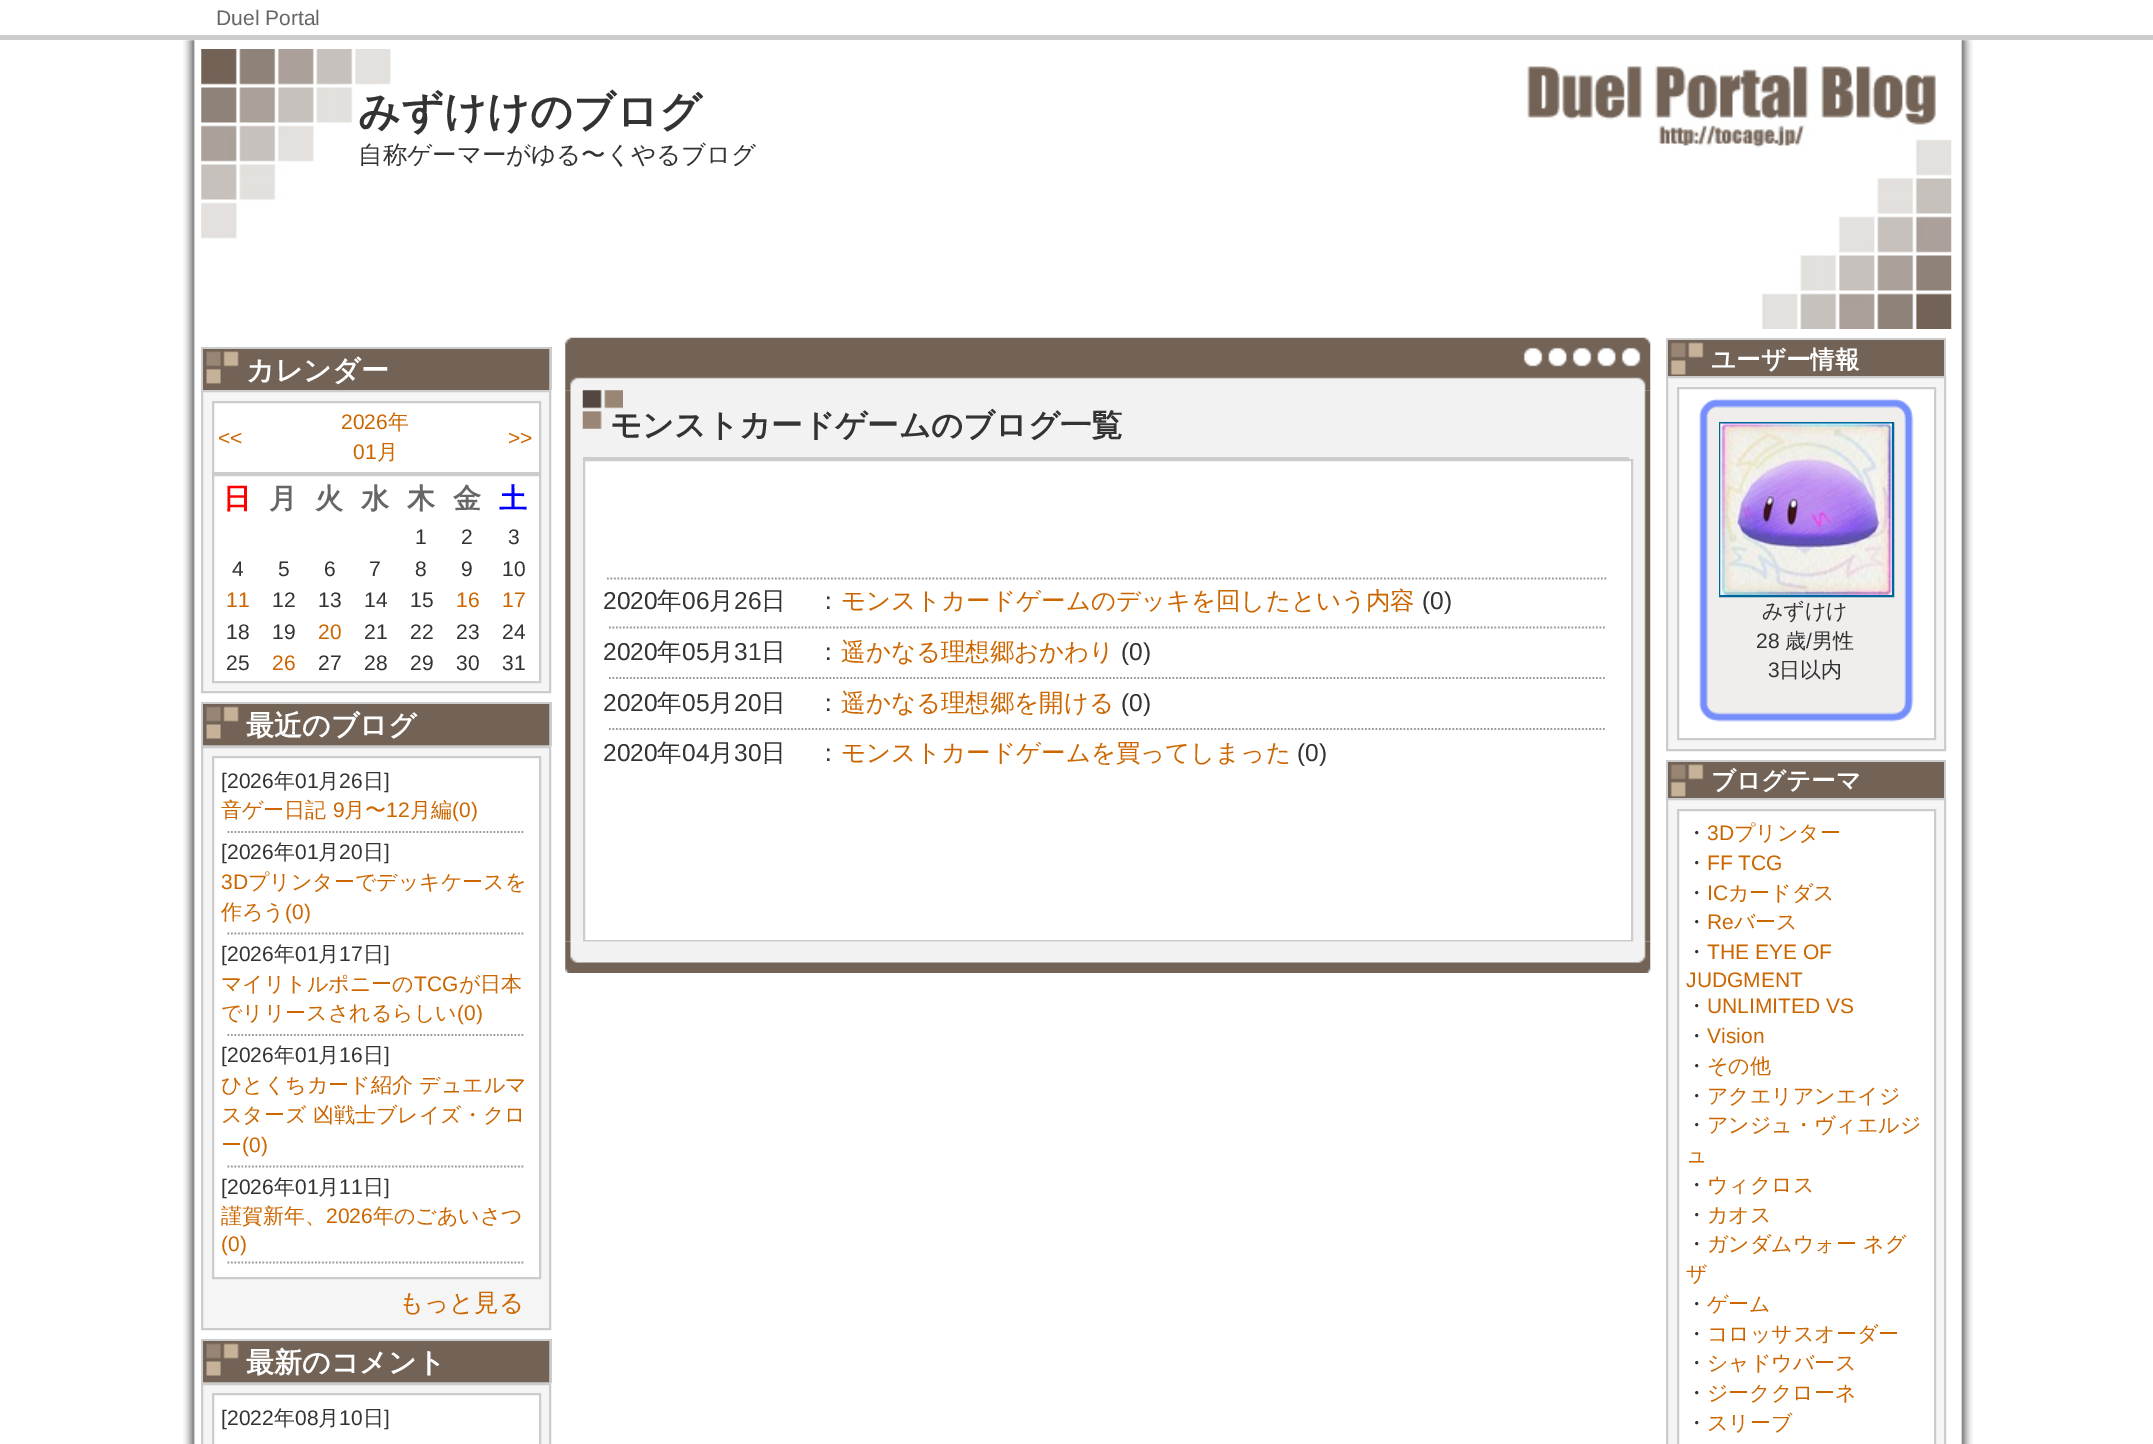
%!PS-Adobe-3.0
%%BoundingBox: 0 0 2153 1444
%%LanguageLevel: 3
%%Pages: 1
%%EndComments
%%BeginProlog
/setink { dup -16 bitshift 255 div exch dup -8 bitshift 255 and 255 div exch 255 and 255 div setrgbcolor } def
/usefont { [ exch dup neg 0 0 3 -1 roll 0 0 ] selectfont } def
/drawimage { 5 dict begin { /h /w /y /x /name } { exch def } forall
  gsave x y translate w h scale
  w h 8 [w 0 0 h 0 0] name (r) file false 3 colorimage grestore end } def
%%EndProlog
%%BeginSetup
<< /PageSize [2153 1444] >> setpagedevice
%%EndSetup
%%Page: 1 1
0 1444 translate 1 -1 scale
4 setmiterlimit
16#FFFFFF setink
0 0 2153 1444 rectfill
16#CCCCCC setink
0 35 2153 5 rectfill
/LiberationSans-Regular 21 usefont
16#666666 setink
216 25 moveto (Duel Portal) show
(img1.raw) 183 40 1790 1404 drawimage
(img2.raw) 201 49 1751 280 drawimage
/WenQuanYiZenHei-Bold 42 usefont
16#333333 setink
358 126 moveto (みずけけのブログ) show
/WenQuanYiZenHei-Medium 24.5 usefont
358 163 moveto (自称ゲーマーがゆる〜くやるブログ) show
(img3.raw) 203 349 347 41 drawimage
[
    [201 347 350 2 16#CCCCCC]
    [550 347 2 43 16#CCCCCC]
    [201 347 2 43 16#CCCCCC]
] { aload pop setink rectfill } forall
/WenQuanYiZenHei-Bold 28 usefont
16#FFFFFF setink
246 380 moveto (カレンダー) show
16#F5F5F5 setink
202 391 moveto 550 391 lineto 550 692 lineto 202 692 lineto closepath gsave fill grestore
16#CCCCCC setink
2 setlinewidth
stroke
16#FFFFFF setink
213 402 moveto 540 402 lineto 540 473 lineto 213 473 lineto closepath gsave fill grestore
16#CCCCCC setink
stroke
/LiberationSans-Regular 21 usefont
16#CC6600 setink
218 445 moveto (<<) show
341 429 moveto (2026) show
/WenQuanYiZenHei-Medium 21 usefont
388 429 moveto (年) show
/LiberationSans-Regular 21 usefont
353 459 moveto (01) show
/WenQuanYiZenHei-Medium 21 usefont
377 459 moveto (月) show
/LiberationSans-Regular 21 usefont
508 445 moveto (>>) show
16#FFFFFF setink
213 475 moveto 540 475 lineto 540 682 lineto 213 682 lineto closepath gsave fill grestore
16#CCCCCC setink
stroke
/WenQuanYiZenHei-Bold 28 usefont
16#FF0000 setink
223 508 moveto (日) show
16#666666 setink
[
    [(月) 269 508]
    [(火) 315 508]
    [(水) 361 508]
    [(木) 407 508]
    [(金) 453 508]
] { aload pop moveto show } forall
16#0000FF setink
499 508 moveto (土) show
/LiberationSans-Regular 21 usefont
16#333333 setink
[
    [(1) 415 544]
    [(2) 461 544]
    [(3) 508 544]
    [(4) 232 576]
    [(5) 278 576]
    [(6) 324 576]
    [(7) 369 576]
    [(8) 415 576]
    [(9) 461 576]
    [(10) 502 576]
] { aload pop moveto show } forall
16#CC6600 setink
226 607 moveto (11) show
16#333333 setink
[
    [(12) 272 607]
    [(13) 318 607]
    [(14) 364 607]
    [(15) 410 607]
] { aload pop moveto show } forall
16#CC6600 setink
456 607 moveto (16) show
502 607 moveto (17) show
16#333333 setink
226 639 moveto (18) show
272 639 moveto (19) show
16#CC6600 setink
318 639 moveto (20) show
16#333333 setink
[
    [(21) 364 639]
    [(22) 410 639]
    [(23) 456 639]
    [(24) 502 639]
    [(25) 226 670]
] { aload pop moveto show } forall
16#CC6600 setink
272 670 moveto (26) show
16#333333 setink
[
    [(27) 318 670]
    [(28) 364 670]
    [(29) 410 670]
    [(30) 456 670]
    [(31) 502 670]
] { aload pop moveto show } forall
(img4.raw) 203 704 347 42 drawimage
[
    [201 702 350 2 16#CCCCCC]
    [550 702 2 44 16#CCCCCC]
    [201 702 2 44 16#CCCCCC]
] { aload pop setink rectfill } forall
/WenQuanYiZenHei-Bold 28 usefont
16#FFFFFF setink
246 735 moveto (最近のブログ) show
16#F5F5F5 setink
202 747 moveto 550 747 lineto 550 1329 lineto 202 1329 lineto closepath gsave fill grestore
16#CCCCCC setink
stroke
16#FFFFFF setink
213 757 moveto 540 757 lineto 540 1278 lineto 213 1278 lineto closepath gsave fill grestore
16#CCCCCC setink
stroke
/LiberationSans-Regular 21 usefont
16#333333 setink
221 788 moveto ([2026) show
/WenQuanYiZenHei-Medium 21 usefont
274 788 moveto (年) show
/LiberationSans-Regular 21 usefont
295 788 moveto (01) show
/WenQuanYiZenHei-Medium 21 usefont
318 788 moveto (月) show
/LiberationSans-Regular 21 usefont
339 788 moveto (26) show
/WenQuanYiZenHei-Medium 21 usefont
363 788 moveto (日) show
/LiberationSans-Regular 21 usefont
384 788 moveto (]) show
/WenQuanYiZenHei-Medium 21 usefont
16#CC6600 setink
221 817 moveto (音ゲー日記) show
/LiberationSans-Regular 21 usefont
333 817 moveto (9) show
/WenQuanYiZenHei-Medium 21 usefont
344 817 moveto (月〜) show
/LiberationSans-Regular 21 usefont
386 817 moveto (12) show
/WenQuanYiZenHei-Medium 21 usefont
410 817 moveto (月編) show
/LiberationSans-Regular 21 usefont
452 817 moveto (\(0\)) show
16#999999 setink
1.8 setlinewidth
[1.75 1.75] 0 setdash
227.5 832 moveto 525 832 lineto stroke
16#333333 setink
221 859 moveto ([2026) show
/WenQuanYiZenHei-Medium 21 usefont
274 859 moveto (年) show
/LiberationSans-Regular 21 usefont
295 859 moveto (01) show
/WenQuanYiZenHei-Medium 21 usefont
318 859 moveto (月) show
/LiberationSans-Regular 21 usefont
339 859 moveto (20) show
/WenQuanYiZenHei-Medium 21 usefont
363 859 moveto (日) show
/LiberationSans-Regular 21 usefont
384 859 moveto (]) show
16#CC6600 setink
221 889 moveto (3D) show
/WenQuanYiZenHei-Medium 21 usefont
248 889 moveto (プリンターでデッキケースを) show
221 919 moveto (作ろう) show
/LiberationSans-Regular 21 usefont
285 919 moveto (\(0\)) show
16#999999 setink
227.5 933.5 moveto 525 933.5 lineto stroke
16#333333 setink
221 961 moveto ([2026) show
/WenQuanYiZenHei-Medium 21 usefont
274 961 moveto (年) show
/LiberationSans-Regular 21 usefont
295 961 moveto (01) show
/WenQuanYiZenHei-Medium 21 usefont
318 961 moveto (月) show
/LiberationSans-Regular 21 usefont
339 961 moveto (17) show
/WenQuanYiZenHei-Medium 21 usefont
363 961 moveto (日) show
/LiberationSans-Regular 21 usefont
384 961 moveto (]) show
/WenQuanYiZenHei-Medium 21 usefont
16#CC6600 setink
221 991 moveto (マイリトルポニーの) show
/LiberationSans-Regular 21 usefont
414 991 moveto (TCG) show
/WenQuanYiZenHei-Medium 21 usefont
459 991 moveto (が日本) show
221 1020 moveto (でリリースされるらしい) show
/LiberationSans-Regular 21 usefont
457 1020 moveto (\(0\)) show
16#999999 setink
227.5 1035 moveto 525 1035 lineto stroke
16#333333 setink
221 1062 moveto ([2026) show
/WenQuanYiZenHei-Medium 21 usefont
274 1062 moveto (年) show
/LiberationSans-Regular 21 usefont
295 1062 moveto (01) show
/WenQuanYiZenHei-Medium 21 usefont
318 1062 moveto (月) show
/LiberationSans-Regular 21 usefont
339 1062 moveto (16) show
/WenQuanYiZenHei-Medium 21 usefont
363 1062 moveto (日) show
/LiberationSans-Regular 21 usefont
384 1062 moveto (]) show
/WenQuanYiZenHei-Medium 21 usefont
16#CC6600 setink
[
    [(ひとくちカード紹介 デュエルマ) 221 1092]
    [(スターズ) 221 1122]
    [(凶戦士ブレイズ・クロ) 313 1122]
    [(ー) 221 1152]
] { aload pop moveto show } forall
/LiberationSans-Regular 21 usefont
242 1152 moveto (\(0\)) show
16#999999 setink
227.5 1166.5 moveto 525 1166.5 lineto stroke
16#333333 setink
221 1194 moveto ([2026) show
/WenQuanYiZenHei-Medium 21 usefont
274 1194 moveto (年) show
/LiberationSans-Regular 21 usefont
295 1194 moveto (01) show
/WenQuanYiZenHei-Medium 21 usefont
318 1194 moveto (月) show
/LiberationSans-Regular 21 usefont
339 1194 moveto (11) show
/WenQuanYiZenHei-Medium 21 usefont
363 1194 moveto (日) show
/LiberationSans-Regular 21 usefont
384 1194 moveto (]) show
/WenQuanYiZenHei-Medium 21 usefont
16#CC6600 setink
221 1223 moveto (謹賀新年、) show
/LiberationSans-Regular 21 usefont
326 1223 moveto (2026) show
/WenQuanYiZenHei-Medium 21 usefont
373 1223 moveto (年のごあいさつ) show
/LiberationSans-Regular 21 usefont
221 1251 moveto (\(0\)) show
16#999999 setink
227.5 1262.5 moveto 525 1262.5 lineto stroke
/WenQuanYiZenHei-Medium 24.5 usefont
16#CC6600 setink
399 1311 moveto (もっと見る) show
(img4.raw) 203 1341 347 42 drawimage
[
    [201 1339 350 2 16#CCCCCC]
    [550 1339 2 44 16#CCCCCC]
    [201 1339 2 44 16#CCCCCC]
] { aload pop setink rectfill } forall
/WenQuanYiZenHei-Bold 28 usefont
16#FFFFFF setink
246 1372 moveto (最新のコメント) show
16#F5F5F5 setink
202 1384 moveto 550 1384 lineto 550 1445 lineto 202 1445 lineto closepath gsave fill grestore
16#CCCCCC setink
2 setlinewidth
[] 0 setdash
stroke
16#FFFFFF setink
213 1394 moveto 540 1394 lineto 540 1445 lineto 213 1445 lineto closepath gsave fill grestore
16#CCCCCC setink
stroke
/LiberationSans-Regular 21 usefont
16#333333 setink
221 1425 moveto ([2022) show
/WenQuanYiZenHei-Medium 21 usefont
274 1425 moveto (年) show
/LiberationSans-Regular 21 usefont
295 1425 moveto (08) show
/WenQuanYiZenHei-Medium 21 usefont
318 1425 moveto (月) show
/LiberationSans-Regular 21 usefont
339 1425 moveto (10) show
/WenQuanYiZenHei-Medium 21 usefont
363 1425 moveto (日) show
/LiberationSans-Regular 21 usefont
384 1425 moveto (]) show
(img5.raw) 565 337 1086 54 drawimage
(img6.raw) 565 390 1086 552 drawimage
(img7.raw) 582 390 41 39 drawimage
16#CCCCCC setink
583 457 1046 2 rectfill
/WenQuanYiZenHei-Bold 31.5 usefont
16#333333 setink
610 436 moveto (モンストカードゲームのブログ一覧) show
16#FFFFFF setink
584 460 moveto 1632 460 lineto 1632 941 lineto 584 941 lineto closepath gsave fill grestore
16#CCCCCC setink
stroke
16#999999 setink
1.8 setlinewidth
[1.75 1.75] 0 setdash
607 578.5 moveto 1608 578.5 lineto stroke
/LiberationSans-Regular 24.5 usefont
16#333333 setink
603 609 moveto (2020) show
/WenQuanYiZenHei-Medium 24.5 usefont
657 609 moveto (年) show
/LiberationSans-Regular 24.5 usefont
682 609 moveto (06) show
/WenQuanYiZenHei-Medium 24.5 usefont
709 609 moveto (月) show
/LiberationSans-Regular 24.5 usefont
734 609 moveto (26) show
/WenQuanYiZenHei-Medium 24.5 usefont
761 609 moveto (日) show
816 609 moveto (：) show
16#CC6600 setink
841 609 moveto (モンストカードゲームのデッキを回したという内容) show
/LiberationSans-Regular 24.5 usefont
16#333333 setink
1422 609 moveto (\(0\)) show
16#999999 setink
609 627.5 moveto 1606.5 627.5 lineto stroke
16#333333 setink
603 660 moveto (2020) show
/WenQuanYiZenHei-Medium 24.5 usefont
657 660 moveto (年) show
/LiberationSans-Regular 24.5 usefont
682 660 moveto (05) show
/WenQuanYiZenHei-Medium 24.5 usefont
709 660 moveto (月) show
/LiberationSans-Regular 24.5 usefont
734 660 moveto (31) show
/WenQuanYiZenHei-Medium 24.5 usefont
761 660 moveto (日) show
816 660 moveto (：) show
16#CC6600 setink
841 660 moveto (遥かなる理想郷おかわり) show
/LiberationSans-Regular 24.5 usefont
16#333333 setink
1121 660 moveto (\(0\)) show
16#999999 setink
609 678 moveto 1606.5 678 lineto stroke
16#333333 setink
603 711 moveto (2020) show
/WenQuanYiZenHei-Medium 24.5 usefont
657 711 moveto (年) show
/LiberationSans-Regular 24.5 usefont
682 711 moveto (05) show
/WenQuanYiZenHei-Medium 24.5 usefont
709 711 moveto (月) show
/LiberationSans-Regular 24.5 usefont
734 711 moveto (20) show
/WenQuanYiZenHei-Medium 24.5 usefont
761 711 moveto (日) show
816 711 moveto (：) show
16#CC6600 setink
841 711 moveto (遥かなる理想郷を開ける) show
/LiberationSans-Regular 24.5 usefont
16#333333 setink
1121 711 moveto (\(0\)) show
16#999999 setink
609 729 moveto 1606.5 729 lineto stroke
16#333333 setink
603 761 moveto (2020) show
/WenQuanYiZenHei-Medium 24.5 usefont
657 761 moveto (年) show
/LiberationSans-Regular 24.5 usefont
682 761 moveto (04) show
/WenQuanYiZenHei-Medium 24.5 usefont
709 761 moveto (月) show
/LiberationSans-Regular 24.5 usefont
734 761 moveto (30) show
/WenQuanYiZenHei-Medium 24.5 usefont
761 761 moveto (日) show
816 761 moveto (：) show
16#CC6600 setink
841 761 moveto (モンストカードゲームを買ってしまった) show
/LiberationSans-Regular 24.5 usefont
16#333333 setink
1297 761 moveto (\(0\)) show
(img8.raw) 565 941 1086 32 drawimage
(img9.raw) 1668 340 276 36 drawimage
[
    [1666 338 280 2 16#CCCCCC]
    [1944 338 2 38 16#CCCCCC]
    [1666 338 2 38 16#CCCCCC]
] { aload pop setink rectfill } forall
/WenQuanYiZenHei-Bold 24.5 usefont
16#FFFFFF setink
1711 368 moveto (ユーザー情報) show
16#F5F5F5 setink
1667 377 moveto 1945 377 lineto 1945 750 lineto 1667 750 lineto closepath gsave fill grestore
16#CCCCCC setink
2 setlinewidth
[] 0 setdash
stroke
16#FFFFFF setink
1678 388 moveto 1935 388 lineto 1935 739 lineto 1678 739 lineto closepath gsave fill grestore
16#CCCCCC setink
stroke
(img10.raw) 1698 398 216 324 drawimage
16#006699 setink
1720 423 173 173 rectstroke
(img11.raw) 1720 423 172 172 drawimage
/WenQuanYiZenHei-Medium 21 usefont
16#333333 setink
1762 618 moveto (みずけけ) show
/LiberationSans-Regular 21 usefont
1756 648 moveto (28) show
/WenQuanYiZenHei-Medium 21 usefont
1785 648 moveto (歳) show
/LiberationSans-Regular 21 usefont
1806 648 moveto (/) show
/WenQuanYiZenHei-Medium 21 usefont
1812 648 moveto (男性) show
/LiberationSans-Regular 21 usefont
1768 677 moveto (3) show
/WenQuanYiZenHei-Medium 21 usefont
1779 677 moveto (日以内) show
(img12.raw) 1668 762 276 36 drawimage
[
    [1666 760 280 2 16#CCCCCC]
    [1944 760 2 38 16#CCCCCC]
    [1666 760 2 38 16#CCCCCC]
] { aload pop setink rectfill } forall
/WenQuanYiZenHei-Bold 24.5 usefont
16#FFFFFF setink
1711 789 moveto (ブログテーマ) show
16#F5F5F5 setink
1667 799 moveto 1945 799 lineto 1945 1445 lineto 1667 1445 lineto closepath gsave fill grestore
16#CCCCCC setink
stroke
16#FFFFFF setink
1678 810 moveto 1935 810 lineto 1935 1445 lineto 1678 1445 lineto closepath gsave fill grestore
16#CCCCCC setink
stroke
/WenQuanYiZenHei-Medium 21 usefont
16#333333 setink
1686 840 moveto (・) show
/LiberationSans-Regular 21 usefont
16#CC6600 setink
1707 840 moveto (3D) show
/WenQuanYiZenHei-Medium 21 usefont
1734 840 moveto (プリンター) show
16#333333 setink
1686 870 moveto (・) show
/LiberationSans-Regular 21 usefont
16#CC6600 setink
1707 870 moveto (FF TCG) show
/WenQuanYiZenHei-Medium 21 usefont
16#333333 setink
1686 900 moveto (・) show
/LiberationSans-Regular 21 usefont
16#CC6600 setink
1707 900 moveto (IC) show
/WenQuanYiZenHei-Medium 21 usefont
1728 900 moveto (カードダス) show
16#333333 setink
1686 929 moveto (・) show
/LiberationSans-Regular 21 usefont
16#CC6600 setink
1707 929 moveto (Re) show
/WenQuanYiZenHei-Medium 21 usefont
1734 929 moveto (バース) show
16#333333 setink
1686 959 moveto (・) show
/LiberationSans-Regular 21 usefont
16#CC6600 setink
1707 959 moveto (THE EYE OF) show
1686 987 moveto (JUDGMENT) show
/WenQuanYiZenHei-Medium 21 usefont
16#333333 setink
1686 1013 moveto (・) show
/LiberationSans-Regular 21 usefont
16#CC6600 setink
1707 1013 moveto (UNLIMITED VS) show
/WenQuanYiZenHei-Medium 21 usefont
16#333333 setink
1686 1043 moveto (・) show
/LiberationSans-Regular 21 usefont
16#CC6600 setink
1707 1043 moveto (Vision) show
/WenQuanYiZenHei-Medium 21 usefont
16#333333 setink
1686 1073 moveto (・) show
16#CC6600 setink
1707 1073 moveto (その他) show
16#333333 setink
1686 1103 moveto (・) show
16#CC6600 setink
1707 1103 moveto (アクエリアンエイジ) show
16#333333 setink
1686 1132 moveto (・) show
16#CC6600 setink
1707 1132 moveto (アンジュ・ヴィエルジ) show
1686 1162 moveto (ュ) show
16#333333 setink
1686 1192 moveto (・) show
16#CC6600 setink
1707 1192 moveto (ウィクロス) show
16#333333 setink
1686 1222 moveto (・) show
16#CC6600 setink
1707 1222 moveto (カオス) show
16#333333 setink
1686 1251 moveto (・) show
16#CC6600 setink
1707 1251 moveto (ガンダムウォー ネグ) show
1686 1281 moveto (ザ) show
16#333333 setink
1686 1311 moveto (・) show
16#CC6600 setink
1707 1311 moveto (ゲーム) show
16#333333 setink
1686 1341 moveto (・) show
16#CC6600 setink
1707 1341 moveto (コロッサスオーダー) show
16#333333 setink
1686 1370 moveto (・) show
16#CC6600 setink
1707 1370 moveto (シャドウバース) show
16#333333 setink
1686 1400 moveto (・) show
16#CC6600 setink
1707 1400 moveto (ジーククローネ) show
16#333333 setink
1686 1430 moveto (・) show
16#CC6600 setink
1707 1430 moveto (スリーブ) show
showpage
%%EOF
